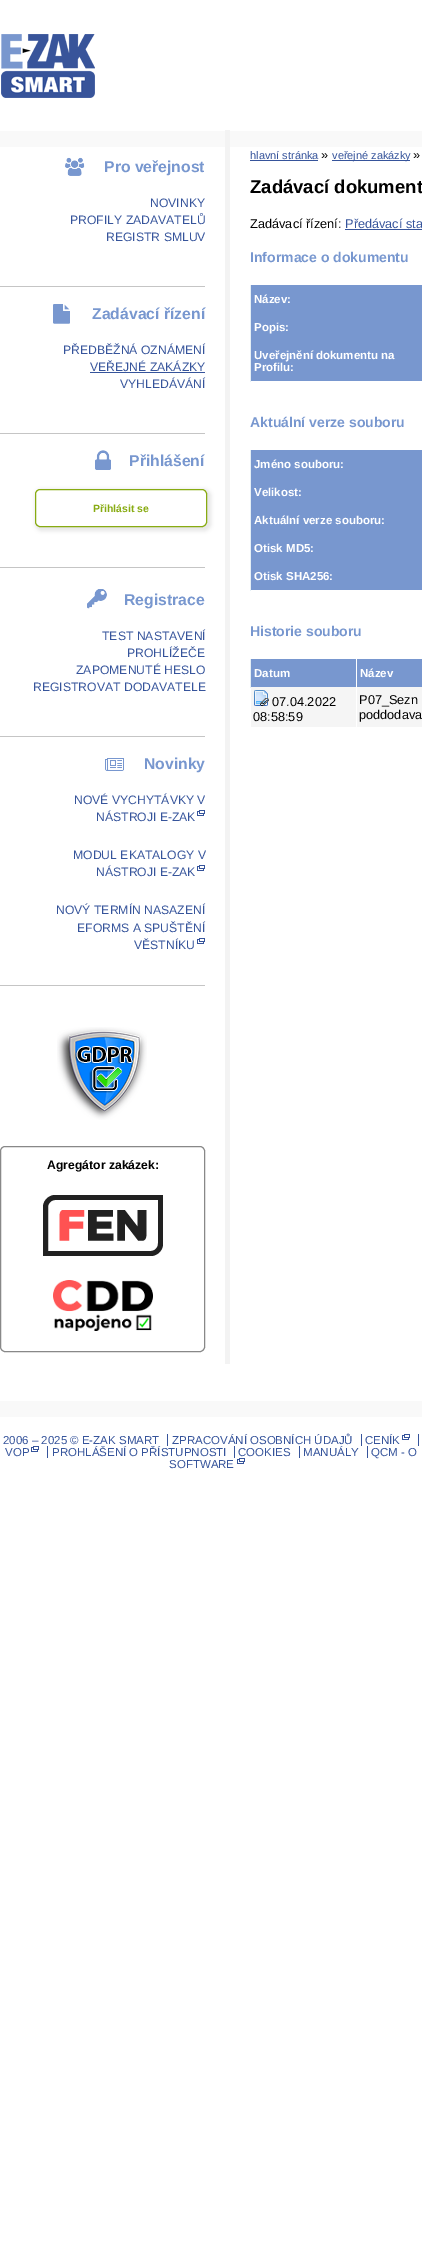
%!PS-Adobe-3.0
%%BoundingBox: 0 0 422 2259
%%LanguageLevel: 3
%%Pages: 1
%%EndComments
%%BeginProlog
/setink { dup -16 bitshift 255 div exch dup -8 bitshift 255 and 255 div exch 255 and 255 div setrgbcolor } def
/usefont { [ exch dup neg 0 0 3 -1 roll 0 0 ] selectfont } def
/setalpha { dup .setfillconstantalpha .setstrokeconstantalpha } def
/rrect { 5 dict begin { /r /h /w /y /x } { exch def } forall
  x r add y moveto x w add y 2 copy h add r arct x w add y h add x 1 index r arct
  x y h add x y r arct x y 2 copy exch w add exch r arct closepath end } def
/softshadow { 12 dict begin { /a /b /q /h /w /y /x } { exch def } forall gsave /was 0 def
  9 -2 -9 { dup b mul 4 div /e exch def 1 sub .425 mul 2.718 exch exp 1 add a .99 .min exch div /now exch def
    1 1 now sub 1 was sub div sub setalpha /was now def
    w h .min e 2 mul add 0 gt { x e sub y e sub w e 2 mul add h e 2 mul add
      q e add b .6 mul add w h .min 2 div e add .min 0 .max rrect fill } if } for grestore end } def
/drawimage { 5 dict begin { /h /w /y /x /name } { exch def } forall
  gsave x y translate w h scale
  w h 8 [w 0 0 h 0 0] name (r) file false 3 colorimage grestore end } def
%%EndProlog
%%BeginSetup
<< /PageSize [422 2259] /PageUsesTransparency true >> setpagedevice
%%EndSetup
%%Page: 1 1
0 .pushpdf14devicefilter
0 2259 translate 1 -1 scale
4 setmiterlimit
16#FFFFFF setink
0 0 422 2259 rectfill
16#F9F9F9 setink
0 131 422 16 rectfill
(img1.raw) 1 34 94 64 drawimage
16#F3F3F3 setink
225 130 5 1234 rectfill
(img2.raw) 65 157 20 19 drawimage
/LiberationSans-Bold 15.75 usefont
16#7897CF setink
104 172 moveto (Pro veřejnost) show
16#C5C5C5 setink
0 286 205 1 rectfill
/LiberationSans-Regular 12.2 usefont
16#36549B setink
[
    [(NOVINKY) 150 207]
    [(PROFILY ZADAVATELŮ) 70 224]
    [(REGISTR SMLUV) 106 241]
] { aload pop moveto show } forall
(img3.raw) 53 304 17 20 drawimage
/LiberationSans-Bold 15.75 usefont
16#7897CF setink
92 319 moveto (Zadávací řízení) show
16#C5C5C5 setink
0 433 205 1 rectfill
/LiberationSans-Regular 12.2 usefont
16#36549B setink
63 354 moveto (PŘEDBĚŽNÁ OZNÁMENÍ) show
90 371 moveto (VEŘEJNÉ ZAKÁZKY) show
90 372 115 1 rectfill
120 388 moveto (VYHLEDÁVÁNÍ) show
(img4.raw) 95 450 16 20 drawimage
/LiberationSans-Bold 15.75 usefont
16#7897CF setink
129 466 moveto (Přihlášení) show
16#C5C5C5 setink
0 567 205 1 rectfill
16#E6E6E6 setink
35 489 176 42 7 2 1 softshadow
16#FFFFFF setink
35.5 489.5 171 37 4.5 rrect gsave fill grestore
16#88AB12 setink
stroke
/LiberationSans-Bold 10.5 usefont
93 512 moveto (Přihlásit se) show
(img5.raw) 87 589 20 20 drawimage
/LiberationSans-Bold 15.75 usefont
16#7897CF setink
124 605 moveto (Registrace) show
16#C5C5C5 setink
0 736 205 1 rectfill
/LiberationSans-Regular 12.2 usefont
16#36549B setink
[
    [(TEST NASTAVENÍ) 102 640]
    [(PROHLÍŽEČE) 127 657]
    [(ZAPOMENUTÉ HESLO) 76 674]
    [(REGISTROVAT DODAVATELE) 33 691]
] { aload pop moveto show } forall
(img6.raw) 105 758 19 13 drawimage
/LiberationSans-Bold 15.75 usefont
16#7897CF setink
144 769 moveto (Novinky) show
16#C5C5C5 setink
0 985 205 1 rectfill
/LiberationSans-Regular 12.2 usefont
16#36549B setink
74 804 moveto (NOVÉ VYCHYTÁVKY V) show
96 821 moveto (NÁSTROJI E-ZAK) show
(img7.raw) 197 810 8 6 drawimage
73 859 moveto (MODUL EKATALOGY V) show
96 876 moveto (NÁSTROJI E-ZAK) show
(img7.raw) 197 865 8 6 drawimage
[
    [(NOVÝ TERMÍN NASAZENÍ) 56 914]
    [(EFORMS A SPUŠTĚNÍ) 77 932]
    [(VĚSTNÍKU) 134 949]
] { aload pop moveto show } forall
(img7.raw) 197 938 8 6 drawimage
(img8.raw) 57 1027 90 93 drawimage
16#888888 setink
0.5 1146.5 204 205 4.5 rrect stroke
/LiberationSans-Bold 12.2 usefont
16#000000 setink
47 1169 moveto (Agregátor zakázek:) show
(img9.raw) 43 1195 120 61 drawimage
(img10.raw) 53 1280 100 51 drawimage
/LiberationSans-Regular 11 usefont
16#36549B setink
250 159 moveto (hlavní stránka) show
250 160 68 1 rectfill
/LiberationSans-Regular 12.75 usefont
16#000000 setink
321 159 moveto (») show
16#36549B setink
332 160 78 1 rectfill
/LiberationSans-Regular 11 usefont
332 159 moveto (veřejné zakázky) show
/LiberationSans-Regular 12.75 usefont
16#000000 setink
413 159 moveto (») show
/LiberationSans-Bold 18.5 usefont
250 193 moveto (Zadávací dokument) show
/LiberationSans-Regular 12.75 usefont
250 228 moveto (Zadávací řízení:) show
16#36549B setink
345 228 moveto (Předávací sta) show
345 229 77 1 rectfill
/LiberationSans-Bold 14 usefont
16#7897CF setink
250 262 moveto (Informace o dokumentu) show
251 285 171 96 rectfill
/LiberationSans-Bold 11.5 usefont
16#FFFFFF setink
254 303 moveto (Název:) show
254 331 moveto (Popis:) show
16#E5EFF5 setink
250 285 1 97 rectfill
16#FFFFFF setink
254 359 moveto (Uveřejnění dokumentu na) show
254 371 moveto (Profilu:) show
/LiberationSans-Bold 14 usefont
16#7897CF setink
250 427 moveto (Aktuální verze souboru) show
251 450 171 140 rectfill
/LiberationSans-Bold 11.5 usefont
16#FFFFFF setink
[
    [(Jméno souboru:) 254 468]
    [(Velikost:) 254 496]
    [(Aktuální verze souboru:) 254 524]
    [(Otisk MD5:) 254 552]
] { aload pop moveto show } forall
16#E5EFF5 setink
250 450 1 141 rectfill
16#FFFFFF setink
254 580 moveto (Otisk SHA256:) show
/LiberationSans-Bold 14 usefont
16#7897CF setink
250 636 moveto (Historie souboru) show
251 659 105 28 rectfill
16#E5EFF5 setink
250 659 1 29 rectfill
/LiberationSans-Bold 11.5 usefont
16#FFFFFF setink
254 677 moveto (Datum) show
16#7897CF setink
357 659 65 28 rectfill
16#FFFFFF setink
360 677 moveto (Název) show
16#F5F5F5 setink
251 687 171 40 rectfill
16#FFFFFF setink
356 687 1 41 rectfill
(img11.raw) 254 690 15 16 drawimage
/LiberationSans-Regular 12.75 usefont
16#000000 setink
[
    [(07.04.2022) 272 706]
    [(08:58:59) 253 721]
    [(P07_Sezn) 359 704]
    [(poddodava) 359 719]
] { aload pop moveto show } forall
16#F9F9F9 setink
0 1401 422 16 rectfill
/LiberationSans-Regular 11.5 usefont
16#36549B setink
3 1444 moveto (2006 – 2025 © E-ZAK SMART) show
167 1434 1 12 rectfill
172 1444 moveto (ZPRACOVÁNÍ OSOBNÍCH ÚDAJŮ) show
361 1434 1 12 rectfill
365 1444 moveto (CENÍK) show
418 1434 1 12 rectfill
(img7.raw) 402 1434 8 6 drawimage
5 1456 moveto (VOP) show
47 1446 1 12 rectfill
(img7.raw) 31 1446 8 6 drawimage
52 1456 moveto (PROHLÁŠENÍ O PŘÍSTUPNOSTI) show
234 1446 1 12 rectfill
238 1456 moveto (COOKIES) show
299 1446 1 12 rectfill
303 1456 moveto (MANUÁLY) show
367 1446 1 12 rectfill
371 1456 moveto (QCM - O) show
169 1468 moveto (SOFTWARE) show
(img7.raw) 237 1458 8 6 drawimage
.poppdf14devicefilter showpage
%%EOF
